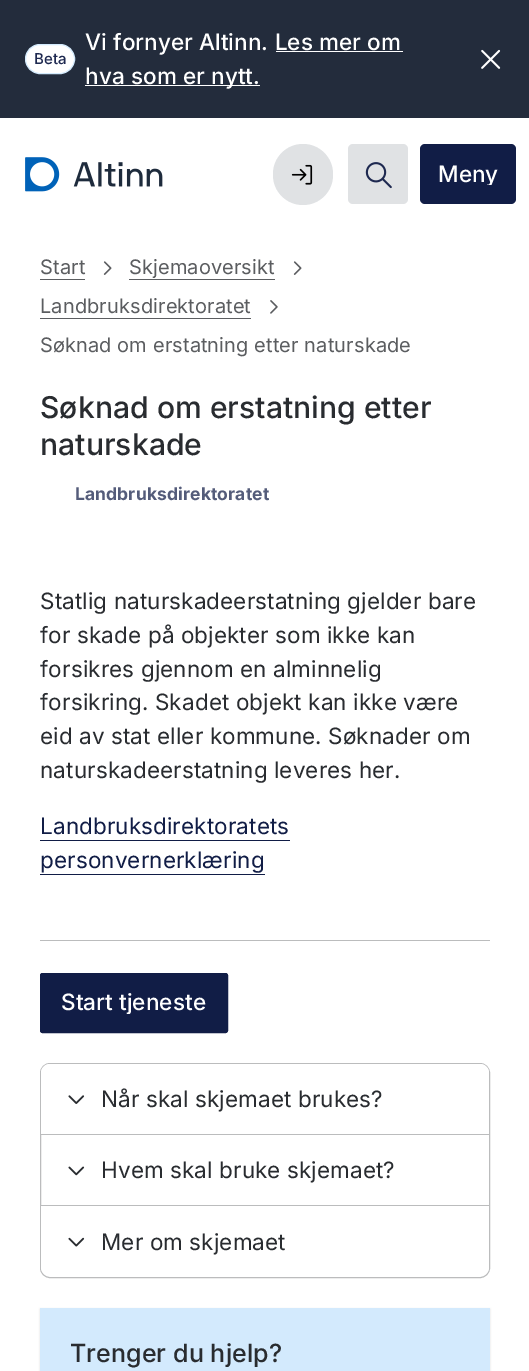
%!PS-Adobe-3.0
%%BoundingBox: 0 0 529 1371
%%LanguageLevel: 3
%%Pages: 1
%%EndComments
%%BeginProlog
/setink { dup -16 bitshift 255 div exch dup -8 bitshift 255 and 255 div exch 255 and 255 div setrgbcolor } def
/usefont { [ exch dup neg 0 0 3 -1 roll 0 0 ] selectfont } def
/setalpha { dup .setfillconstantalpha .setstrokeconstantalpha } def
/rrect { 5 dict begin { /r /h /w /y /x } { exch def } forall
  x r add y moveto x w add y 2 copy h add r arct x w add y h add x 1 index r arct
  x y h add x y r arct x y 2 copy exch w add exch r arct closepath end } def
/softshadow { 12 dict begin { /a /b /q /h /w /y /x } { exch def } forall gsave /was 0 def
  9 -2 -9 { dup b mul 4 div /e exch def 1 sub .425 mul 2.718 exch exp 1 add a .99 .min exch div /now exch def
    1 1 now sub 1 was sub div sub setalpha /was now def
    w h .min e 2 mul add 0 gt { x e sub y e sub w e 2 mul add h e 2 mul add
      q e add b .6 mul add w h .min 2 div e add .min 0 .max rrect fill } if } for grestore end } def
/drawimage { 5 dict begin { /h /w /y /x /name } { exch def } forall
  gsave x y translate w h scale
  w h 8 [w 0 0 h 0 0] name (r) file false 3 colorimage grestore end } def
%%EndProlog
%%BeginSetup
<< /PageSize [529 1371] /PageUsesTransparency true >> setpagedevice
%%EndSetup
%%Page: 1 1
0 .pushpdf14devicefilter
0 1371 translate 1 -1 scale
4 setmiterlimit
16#FFFFFF setink
0 0 529 1371 rectfill
16#232C3C setink
0 0 529 118 rectfill
16#FFFFFF setink
25.5 44.5 49 29 14.5 rrect gsave fill grestore
16#D3EAFD setink
stroke
/Inter-Medium 15 usefont
16#1E2950 setink
34 64 moveto 0.1 0 (Beta) ashow
/Inter-Medium 22.5 usefont
16#FFFFFF setink
85 50 moveto 0.1 0 (Vi fornyer Altinn. Les mer om) ashow
85 85 175 1 rectfill
85 84 moveto 0.1 0 (hva som er nytt.) ashow
276 51 127 1 rectfill
(img1.raw) 481 49 20 20 drawimage
(img2.raw) 25 157 138 35 drawimage
16#E0E2E4 setink
273 144 60 61 30 rrect fill
(img3.raw) 291 164 22 21 drawimage
348 144 60 60 5 rrect fill
(img4.raw) 365 162 27 27 drawimage
16#111D46 setink
420 144 96 60 5 rrect fill
gsave
433 163 71 22 rectclip
16#FFFFFF setink
438 182 moveto (Meny) show
grestore
/Inter-Regular 20 usefont
16#5B5D60 setink
40 274 moveto 0.1 0 (Start) ashow
40 279 45 1 rectfill
(img5.raw) 103 261 9 14 drawimage
129 274 moveto 0.1 0 (Skjemaoversikt) ashow
129 279 146 1 rectfill
(img5.raw) 293 261 9 14 drawimage
40 313 moveto 0.1 0 (Landbruksdirektoratet) ashow
40 318 211 1 rectfill
(img6.raw) 270 300 8 14 drawimage
40 352 moveto 0.1 0 (Søknad om erstatning etter naturskade) ashow
/Inter-Medium 30 usefont
16#292C30 setink
40 418 moveto 0.1 0 (Søknad om erstatning etter) ashow
40 455 moveto 0.1 0 (naturskade) ashow
/Inter-Bold 17.5 usefont
16#545C7A setink
75 500 moveto 0.1 0 (Landbruksdirektoratet) ashow
/Inter-Regular 22.5 usefont
16#292C30 setink
40 609 moveto 0.1 0 (Statlig naturskadeerstatning gjelder bare) ashow
40 643 moveto 0.1 0 (for skade på objekter som ikke kan) ashow
40 677 moveto 0.1 0 (forsikres gjennom en alminnelig) ashow
40 710 moveto 0.1 0 (forsikring. Skadet objekt kan ikke være) ashow
40 744 moveto 0.1 0 (eid av stat eller kommune. Søknader om) ashow
40 778 moveto 0.1 0 (naturskadeerstatning leveres her.) ashow
16#111D46 setink
40 834 moveto 0.1 0 (Landbruksdirektoratets) ashow
40 840 250 1 rectfill
40 868 moveto 0.1 0 (personvernerklæring) ashow
40 874 225 1 rectfill
16#BBBCBD setink
40 940 450 1 rectfill
16#111D46 setink
40.5 973.5 187 59 2 rrect gsave fill grestore
stroke
gsave
55 991 156 23 rectclip
/Inter-Medium 22.5 usefont
16#FFFFFF setink
61 1010 moveto 0.1 0 (Start tjeneste) ashow
grestore
16#BBBCBD setink
40.5 1063.5 449 214 9.5 rrect stroke
41 1134 448 1 rectfill
16#FFFFFF setink
50 1064 moveto 480 1064 lineto 485 1064 489 1068 489 1073 curveto 489 1134 lineto 41 1134 lineto 41 1073 lineto 41 1068 45 1064 50 1064 curveto closepath fill
(img7.raw) 68 1095 17 9 drawimage
16#292C30 setink
101 1107 moveto 0.1 0 (Når skal skjemaet brukes?) ashow
16#BBBCBD setink
41 1205 448 1 rectfill
(img8.raw) 68 1166 17 10 drawimage
16#292C30 setink
101 1178 moveto 0.1 0 (Hvem skal bruke skjemaet?) ashow
16#FFFFFF setink
41 1206 moveto 489 1206 lineto 489 1267 lineto 489 1272 485 1276 480 1276 curveto 50 1276 lineto 45 1276 41 1272 41 1267 curveto closepath fill
(img9.raw) 68 1237 17 10 drawimage
16#292C30 setink
101 1250 moveto 0.1 0 (Mer om skjemaet) ashow
16#000000 setink
40 1309 450 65 0 1 0.12 softshadow
16#D3EAFD setink
40 1308 450 63 rectfill
/Inter-Medium 25 usefont
16#292C30 setink
70 1362 moveto 0.1 0 (Trenger du hjelp?) ashow
.poppdf14devicefilter showpage
%%EOF
